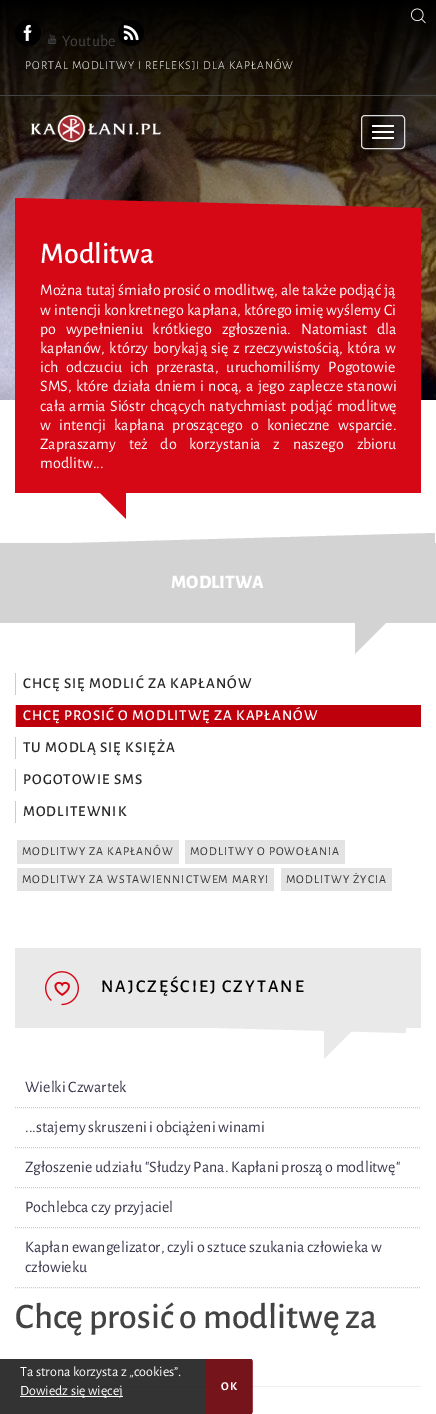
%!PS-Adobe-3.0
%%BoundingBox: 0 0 436 1414
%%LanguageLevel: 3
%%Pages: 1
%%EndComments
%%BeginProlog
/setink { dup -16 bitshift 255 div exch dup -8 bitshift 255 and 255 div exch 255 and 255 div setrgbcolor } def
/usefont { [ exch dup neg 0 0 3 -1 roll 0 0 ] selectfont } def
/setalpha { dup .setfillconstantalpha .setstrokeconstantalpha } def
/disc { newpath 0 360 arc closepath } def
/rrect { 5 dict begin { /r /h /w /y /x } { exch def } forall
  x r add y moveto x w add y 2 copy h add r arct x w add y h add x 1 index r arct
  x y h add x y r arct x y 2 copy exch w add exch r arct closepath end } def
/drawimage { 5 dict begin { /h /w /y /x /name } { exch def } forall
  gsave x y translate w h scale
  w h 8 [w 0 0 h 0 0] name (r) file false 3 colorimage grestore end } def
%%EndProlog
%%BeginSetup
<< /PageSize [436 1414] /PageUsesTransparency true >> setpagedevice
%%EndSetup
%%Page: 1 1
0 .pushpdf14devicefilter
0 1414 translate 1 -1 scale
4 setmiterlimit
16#FFFFFF setink
0 0 436 1414 rectfill
(img1.raw) 0 0 436 400 drawimage
16#454545 setink
0 95 436 1 rectfill
(img2.raw) 411 8 15 16 drawimage
16#000000 setink
28 33 13 disc fill
(img3.raw) 23 24 9 17 drawimage
(img4.raw) 48 34 9 10 drawimage
/AlegreyaSans-Regular 16 usefont
16#434343 setink
62 46 moveto (Youtube) show
16#000000 setink
131 33 13 disc fill
(img5.raw) 123 25 16 16 drawimage
/AlegreyaSans-Light 12 usefont
16#FFFFFF setink
25 69 moveto 1 0 (PORTAL MODLITWY I REFLEKSJI DLA KAPŁANÓW) ashow
(img6.raw) 31 115 130 27 drawimage
16#DDDDDD setink
361.5 115.5 43 33 3.5 rrect stroke
16#FFFFFF setink
372 125 22 2 1 rrect fill
372 131 22 2 1 rrect fill
372 137 22 2 1 rrect fill
16#D70816 setink
15 340 406 153 rectfill
15 198 moveto 421 208 lineto 421 351 lineto 15 340 lineto closepath fill
/AlegreyaSans-Medium 30 usefont
16#FFFFFF setink
40 263 moveto (Modlitwa) show
/AlegreyaSans-Regular 16 usefont
40 295 moveto 0.25 0 32 (Można tutaj śmiało prosić o modlitwę, ale także podjąć ją) widthshow
40 315 moveto 0.5 0 32 (w intencji konkretnego kapłana, którego imię wyślemy Ci) widthshow
40 334 moveto 7 0 32 (po wypełnieniu krótkiego zgłoszenia. Natomiast dla) widthshow
40 353 moveto 1.75 0 32 (kapłanów, którzy borykają się z rzeczywistością, która w) widthshow
40 372 moveto 5.5 0 32 (ich odczuciu ich przerasta, uruchomiliśmy Pogotowie) widthshow
40 391 moveto 1.75 0 32 (SMS, które działa dniem i nocą, a jego zaplecze stanowi) widthshow
40 411 moveto 1.5 0 32 (cała armia Sióstr chcących natychmiast podjąć modlitwę) widthshow
40 430 moveto 5.5 0 32 (w intencji kapłana proszącego o konieczne wsparcie.) widthshow
40 449 moveto 10 0 32 (Zapraszamy też do korzystania z naszego zbioru) widthshow
40 468 moveto (modlitw...) show
16#D70816 setink
98 491 moveto 126 491 lineto 126 519 lineto closepath fill
16#D3D3D3 setink
0 543 436 80 rectfill
0 545 moveto 435 533 lineto 435 573 lineto 0 585 lineto closepath fill
/AlegreyaSans-ExtraBold 19 usefont
16#FFFFFF setink
171 588 moveto (MODLITWA) show
16#D3D3D3 setink
355 623 moveto 386 623 lineto 355 654 lineto closepath fill
16#CCCCCC setink
15 673 1 22 rectfill
/AlegreyaSans-Medium 15 usefont
16#282828 setink
23 688 moveto 1 0 (CHCĘ SIĘ MODLIĆ ZA KAPŁANÓW) ashow
16#BE000D setink
16 705 405 22 rectfill
16#CCCCCC setink
15 705 1 22 rectfill
16#FFFFFF setink
23 720 moveto 1 0 (CHCĘ PROSIĆ O MODLITWĘ ZA KAPŁANÓW) ashow
16#CCCCCC setink
15 737 1 22 rectfill
16#282828 setink
23 752 moveto 1 0 (TU MODLĄ SIĘ KSIĘŻA) ashow
16#CCCCCC setink
15 769 1 22 rectfill
16#282828 setink
23 784 moveto 1 0 (POGOTOWIE SMS) ashow
16#CCCCCC setink
15 801 1 22 rectfill
16#282828 setink
23 816 moveto 1 0 (MODLITEWNIK) ashow
16#E3E3E3 setink
17 840 162 24 rectfill
/AlegreyaSans-Regular 12 usefont
16#333333 setink
22 855 moveto 1 0 (MODLITWY ZA KAPŁANÓW) ashow
16#E3E3E3 setink
185 840 160 24 rectfill
16#333333 setink
190 855 moveto 1 0 (MODLITWY O POWOŁANIA) ashow
16#E3E3E3 setink
17 868 257 23 rectfill
16#333333 setink
22 883 moveto 1 0 (MODLITWY ZA WSTAWIENNICTWEM MARYI) ashow
16#E3E3E3 setink
281 868 111 23 rectfill
16#333333 setink
286 883 moveto 1 0 (MODLITWY ŻYCIA) ashow
16#E9E9E9 setink
30 953 moveto 406 963 lineto 406 1033 lineto 30 1023 lineto closepath fill
15 948 406 80 rectfill
(img7.raw) 45 971 34 35 drawimage
/AlegreyaSans-Medium 18 usefont
16#000000 setink
101 992 moveto 2 0 (NAJCZĘŚCIEJ CZYTANE) ashow
16#E9E9E9 setink
324 1028 moveto 355 1028 lineto 324 1059 lineto closepath fill
16#CCCCCC setink
[1 1] 0 setdash
15 1107.5 moveto 421 1107.5 lineto stroke
/AlegreyaSans-Regular 16 usefont
16#39364B setink
25 1092 moveto (Wielki Czwartek) show
16#CCCCCC setink
15 1147.5 moveto 421 1147.5 lineto stroke
16#39364B setink
25 1132 moveto (...stajemy skruszeni i obciążeni winami) show
16#CCCCCC setink
15 1187.5 moveto 421 1187.5 lineto stroke
16#39364B setink
25 1172 moveto (Zgłoszenie udziału "Słudzy Pana. Kapłani proszą o modlitwę") show
16#CCCCCC setink
15 1227.5 moveto 421 1227.5 lineto stroke
16#39364B setink
25 1212 moveto (Pochlebca czy przyjaciel) show
16#CCCCCC setink
15 1287.5 moveto 421 1287.5 lineto stroke
16#39364B setink
25 1252 moveto (Kapłan ewangelizator, czyli o sztuce szukania człowieka w) show
25 1272 moveto (człowieku) show
16#EEEEEE setink
15 1386 406 1 rectfill
/AlegreyaSans-Medium 36 usefont
16#434343 setink
15 1328 moveto (Chcę prosić o modlitwę za) show
0.8 setalpha
16#000000 setink
0 1359 252 55 rectfill
/AlegreyaSans-Regular 14 usefont
1 setalpha
16#FFFFFF setink
20 1376 moveto (Ta strona korzysta z „cookies”.) show
20 1396 103 1 rectfill
20 1395 moveto (Dowiedz się więcej) show
0.8 setalpha
16#870C15 setink
206 1359 moveto 250 1359 lineto 251.5 1359 253 1360.5 253 1362 curveto 253 1411 lineto 253 1412.5 251.5 1414 250 1414 curveto 206 1414 lineto closepath fill
/AlegreyaSans-Bold 12 usefont
1 setalpha
16#FFFFFF setink
221 1390 moveto 1 0 (OK) ashow
.poppdf14devicefilter showpage
%%EOF
